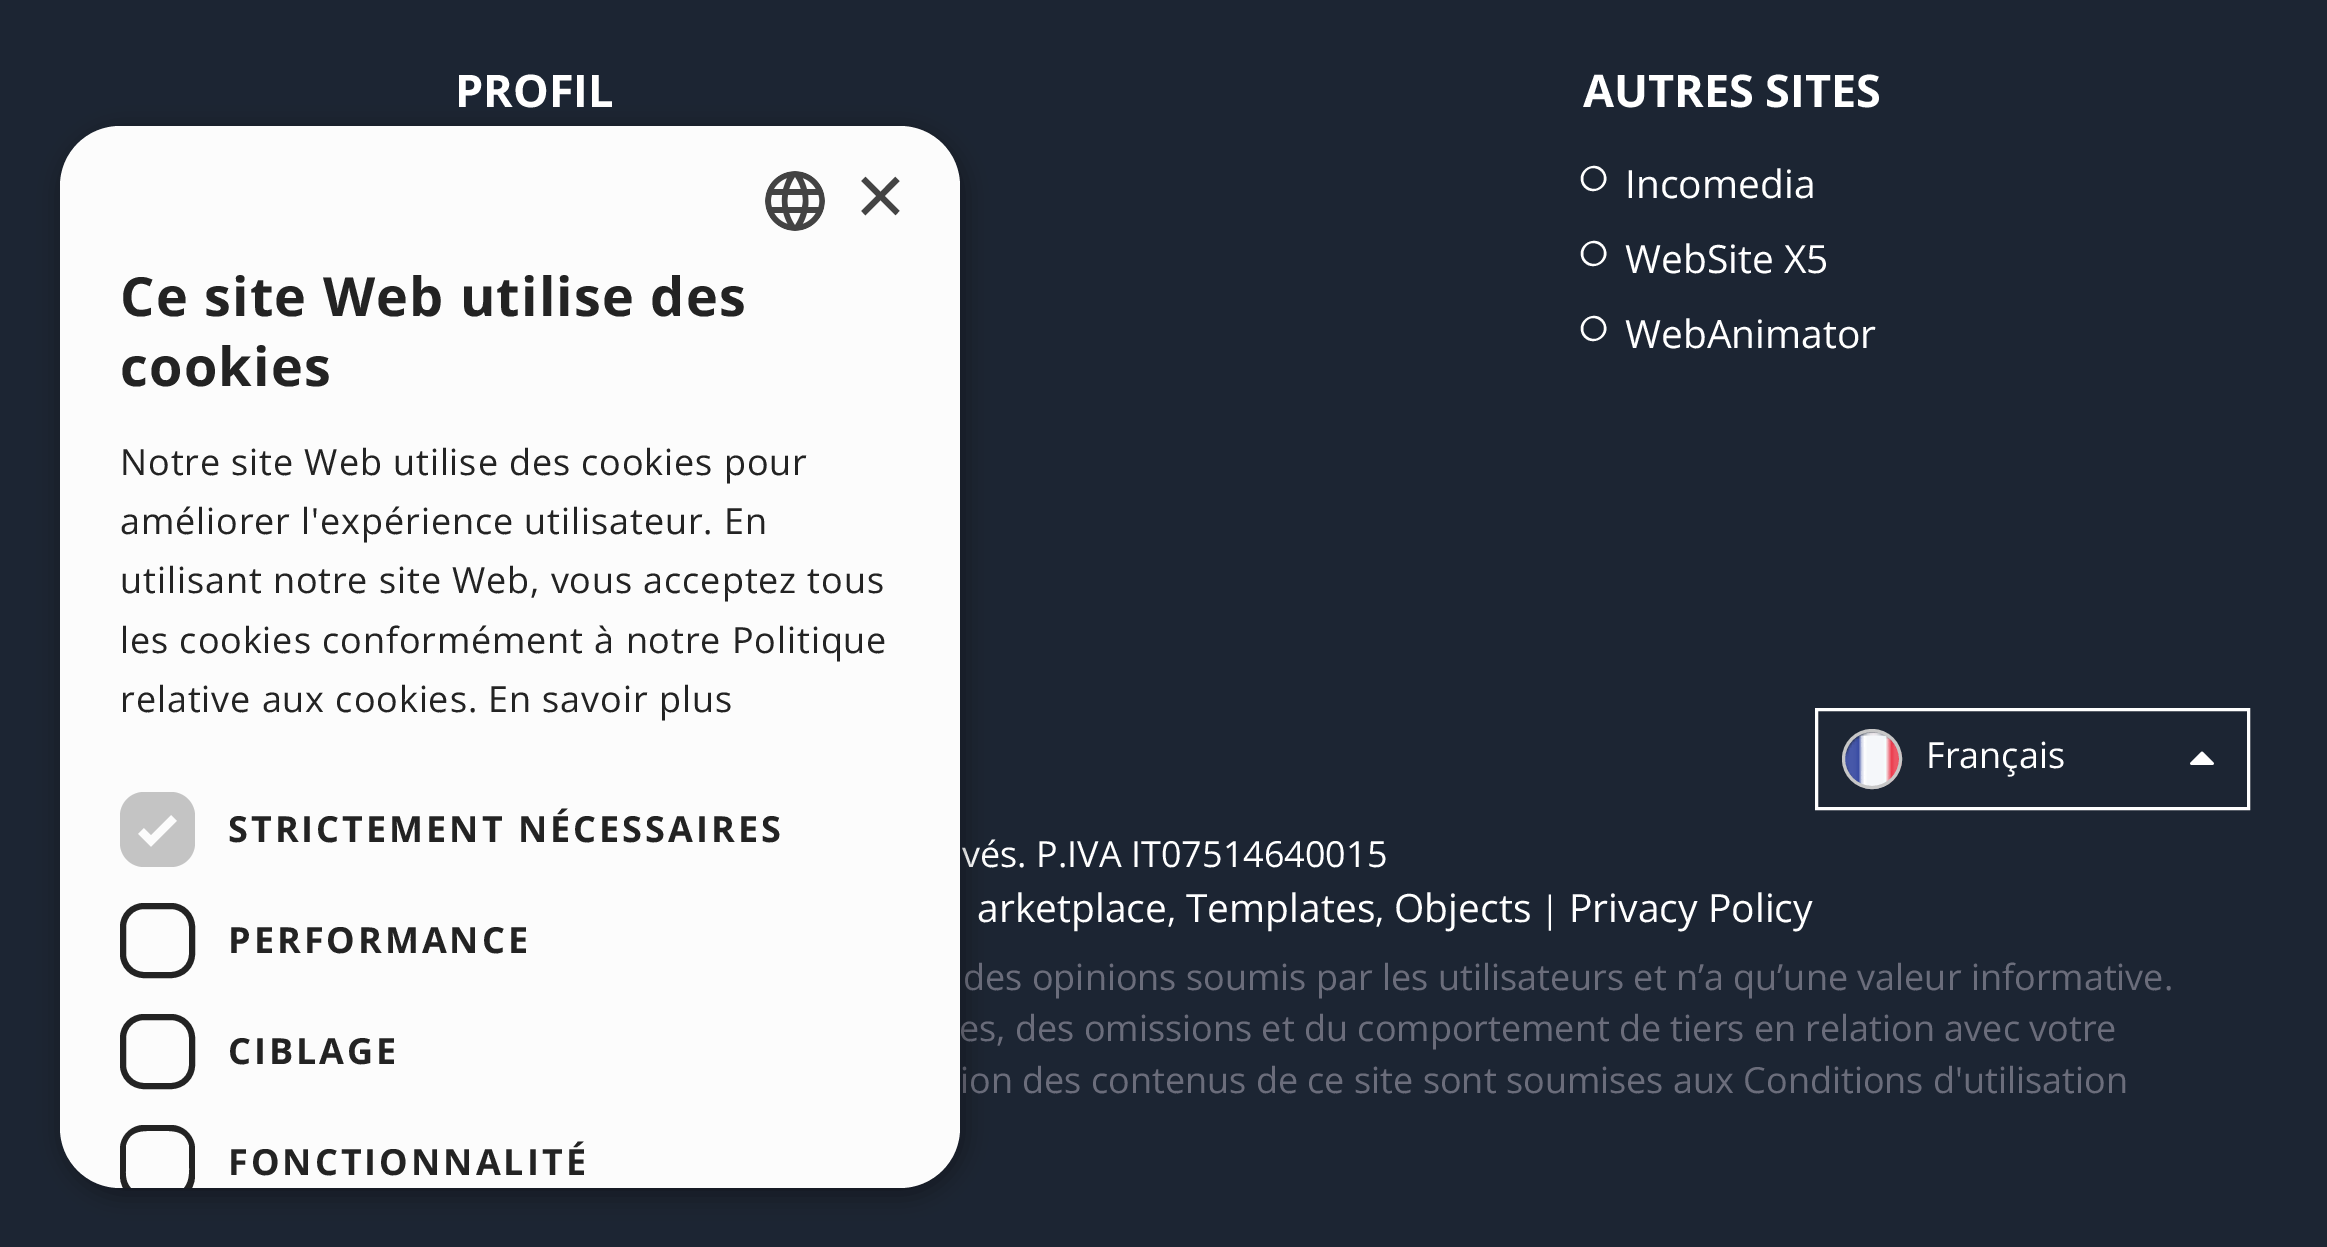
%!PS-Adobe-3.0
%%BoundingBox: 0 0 2327 1247
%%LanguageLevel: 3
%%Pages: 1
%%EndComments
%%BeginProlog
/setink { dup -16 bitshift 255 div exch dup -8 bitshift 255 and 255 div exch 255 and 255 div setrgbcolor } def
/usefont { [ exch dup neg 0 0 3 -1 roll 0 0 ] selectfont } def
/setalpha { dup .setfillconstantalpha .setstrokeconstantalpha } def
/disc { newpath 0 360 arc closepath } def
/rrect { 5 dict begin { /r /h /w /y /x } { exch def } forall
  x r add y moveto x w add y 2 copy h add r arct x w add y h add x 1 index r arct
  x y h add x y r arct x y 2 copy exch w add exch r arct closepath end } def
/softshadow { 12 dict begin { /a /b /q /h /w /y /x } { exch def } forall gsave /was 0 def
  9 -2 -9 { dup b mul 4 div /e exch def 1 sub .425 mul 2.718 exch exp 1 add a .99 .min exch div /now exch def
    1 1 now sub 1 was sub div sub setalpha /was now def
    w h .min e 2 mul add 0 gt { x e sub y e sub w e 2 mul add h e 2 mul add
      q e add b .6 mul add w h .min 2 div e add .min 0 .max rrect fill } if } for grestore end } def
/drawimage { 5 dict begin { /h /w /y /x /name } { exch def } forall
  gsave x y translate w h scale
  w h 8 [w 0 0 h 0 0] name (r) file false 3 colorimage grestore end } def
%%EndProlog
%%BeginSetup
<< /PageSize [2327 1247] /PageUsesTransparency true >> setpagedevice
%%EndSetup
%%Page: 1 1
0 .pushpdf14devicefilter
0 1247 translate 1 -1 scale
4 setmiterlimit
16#1C2533 setink
0 0 2327 1247 rectfill
/OpenSans-Bold 45 usefont
16#FFFFFF setink
455 107 moveto (PROFIL) show
1583 107 moveto (AUTRES SITES) show
1597.5 169 moveto 1585 163.5 1577 182.5 1589.5 188 curveto 1602 193.5 1610.5 174.5 1597.5 169 curveto closepath 1604.5 172 moveto 1613 186.5 1591 199 1582.5 185 curveto 1574.5 170.5 1596 158 1604.5 172 curveto closepath fill
/OpenSans-Regular 39 usefont
1625 198 moveto (Incomedia) show
1597.5 244 moveto 1585 238.5 1577 257.5 1589.5 263 curveto 1602 268.5 1610.5 249.5 1597.5 244 curveto closepath 1604.5 247 moveto 1613 261.5 1591 274 1582.5 260 curveto 1574.5 245.5 1596 233 1604.5 247 curveto closepath fill
1625 273 moveto (WebSite X5) show
1597.5 319 moveto 1585 313.5 1577 332.5 1589.5 338 curveto 1602 343.5 1610.5 324.5 1597.5 319 curveto closepath 1604.5 322 moveto 1613 336.5 1591 349 1582.5 335 curveto 1574.5 320.5 1596 308 1604.5 322 curveto closepath fill
1625 348 moveto (WebAnimator) show
3 setlinewidth
1816.5 709.5 432 99 rectstroke
(img1.raw) 1845 731 57 58 drawimage
16#C7C7C7 setink
1872 759 28.5 disc stroke
/OpenSans-Regular 36 usefont
16#FFFFFF setink
1926 768 moveto (Français) show
(img2.raw) 2190 751 24 14 drawimage
962 867 moveto (vés. P.IVA IT07514640015) show
/OpenSans-Regular 39 usefont
977 922 moveto (arketplace) show
/OpenSans-Regular 36 usefont
1167 922 moveto (,) show
/OpenSans-Regular 39 usefont
1186 922 moveto (Templates) show
/OpenSans-Regular 36 usefont
1375 922 moveto (,) show
/OpenSans-Regular 39 usefont
1394 922 moveto (Objects) show
/OpenSans-Regular 36 usefont
1540 922 moveto (|) show
/OpenSans-Regular 39 usefont
1569 922 moveto (Privacy Policy) show
/OpenSans-Regular 36 usefont
16#6B6D7B setink
[
    [(des opinions soumis par les utilisateurs et n’a qu’une valeur informative.) 963 990]
    [(es, des omissions et du comportement de tiers en relation avec votre) 959 1041]
    [(ion des contenus de ce site sont soumises aux Conditions d'utilisation) 960 1093]
] { aload pop moveto show } forall
16#000000 setink
63 132 900 1062 60 12 0.35 softshadow
16#FCFCFC setink
60 126 900 1062 60 rrect fill
(img3.raw) 765 171 60 60 drawimage
/LiberationSans-Regular 87 usefont
16#444444 setink
855 225 moveto (×) show
/OpenSans-Bold 54 usefont
16#232323 setink
120 316 moveto 1.2 0 (Ce site Web utilise des) ashow
120 386 moveto 1.2 0 (cookies) ashow
/OpenSans-Regular 36 usefont
120 475 moveto 0.9 0 (Notre site Web utilise des cookies pour) ashow
120 534 moveto 0.9 0 (améliorer l'expérience utilisateur. En) ashow
120 593 moveto 0.9 0 (utilisant notre site Web, vous acceptez tous) ashow
120 653 moveto 0.9 0 (les cookies conformément à notre Politique) ashow
120 712 moveto 0.9 0 (relative aux cookies. En savoir plus) ashow
16#C4C4C4 setink
120 792 75 75 24 rrect fill
16#FCFCFC setink
7.9 setlinewidth
141 831 moveto 151 841 lineto 174 818 lineto stroke
/OpenSans-Bold 36 usefont
16#232323 setink
228 842 moveto 3 0 (STRICTEMENT NÉCESSAIRES) ashow
6 setlinewidth
123 906 69 69 21 rrect stroke
228 953 moveto 3 0 (PERFORMANCE) ashow
123 1017 69 69 21 rrect stroke
228 1064 moveto 3 0 (CIBLAGE) ashow
144 1125 moveto 131 1125 120 1136 120 1149 curveto 120 1176 lineto 120 1180 121 1184 123 1188 curveto 131 1188 lineto 124 1181 126 1171 126 1162 curveto 126 1145 lineto 130 1129 145 1131 158 1131 curveto 170 1131 185 1129 189 1145 curveto 189 1158 lineto 189 1167 191 1180 184 1188 curveto 192 1188 lineto 194 1184 195 1180 195 1176 curveto 195 1149 lineto 195 1136 184 1125 171 1125 curveto closepath fill
228 1175 moveto 3 0 (FONCTIONNALITÉ) ashow
.poppdf14devicefilter showpage
%%EOF
